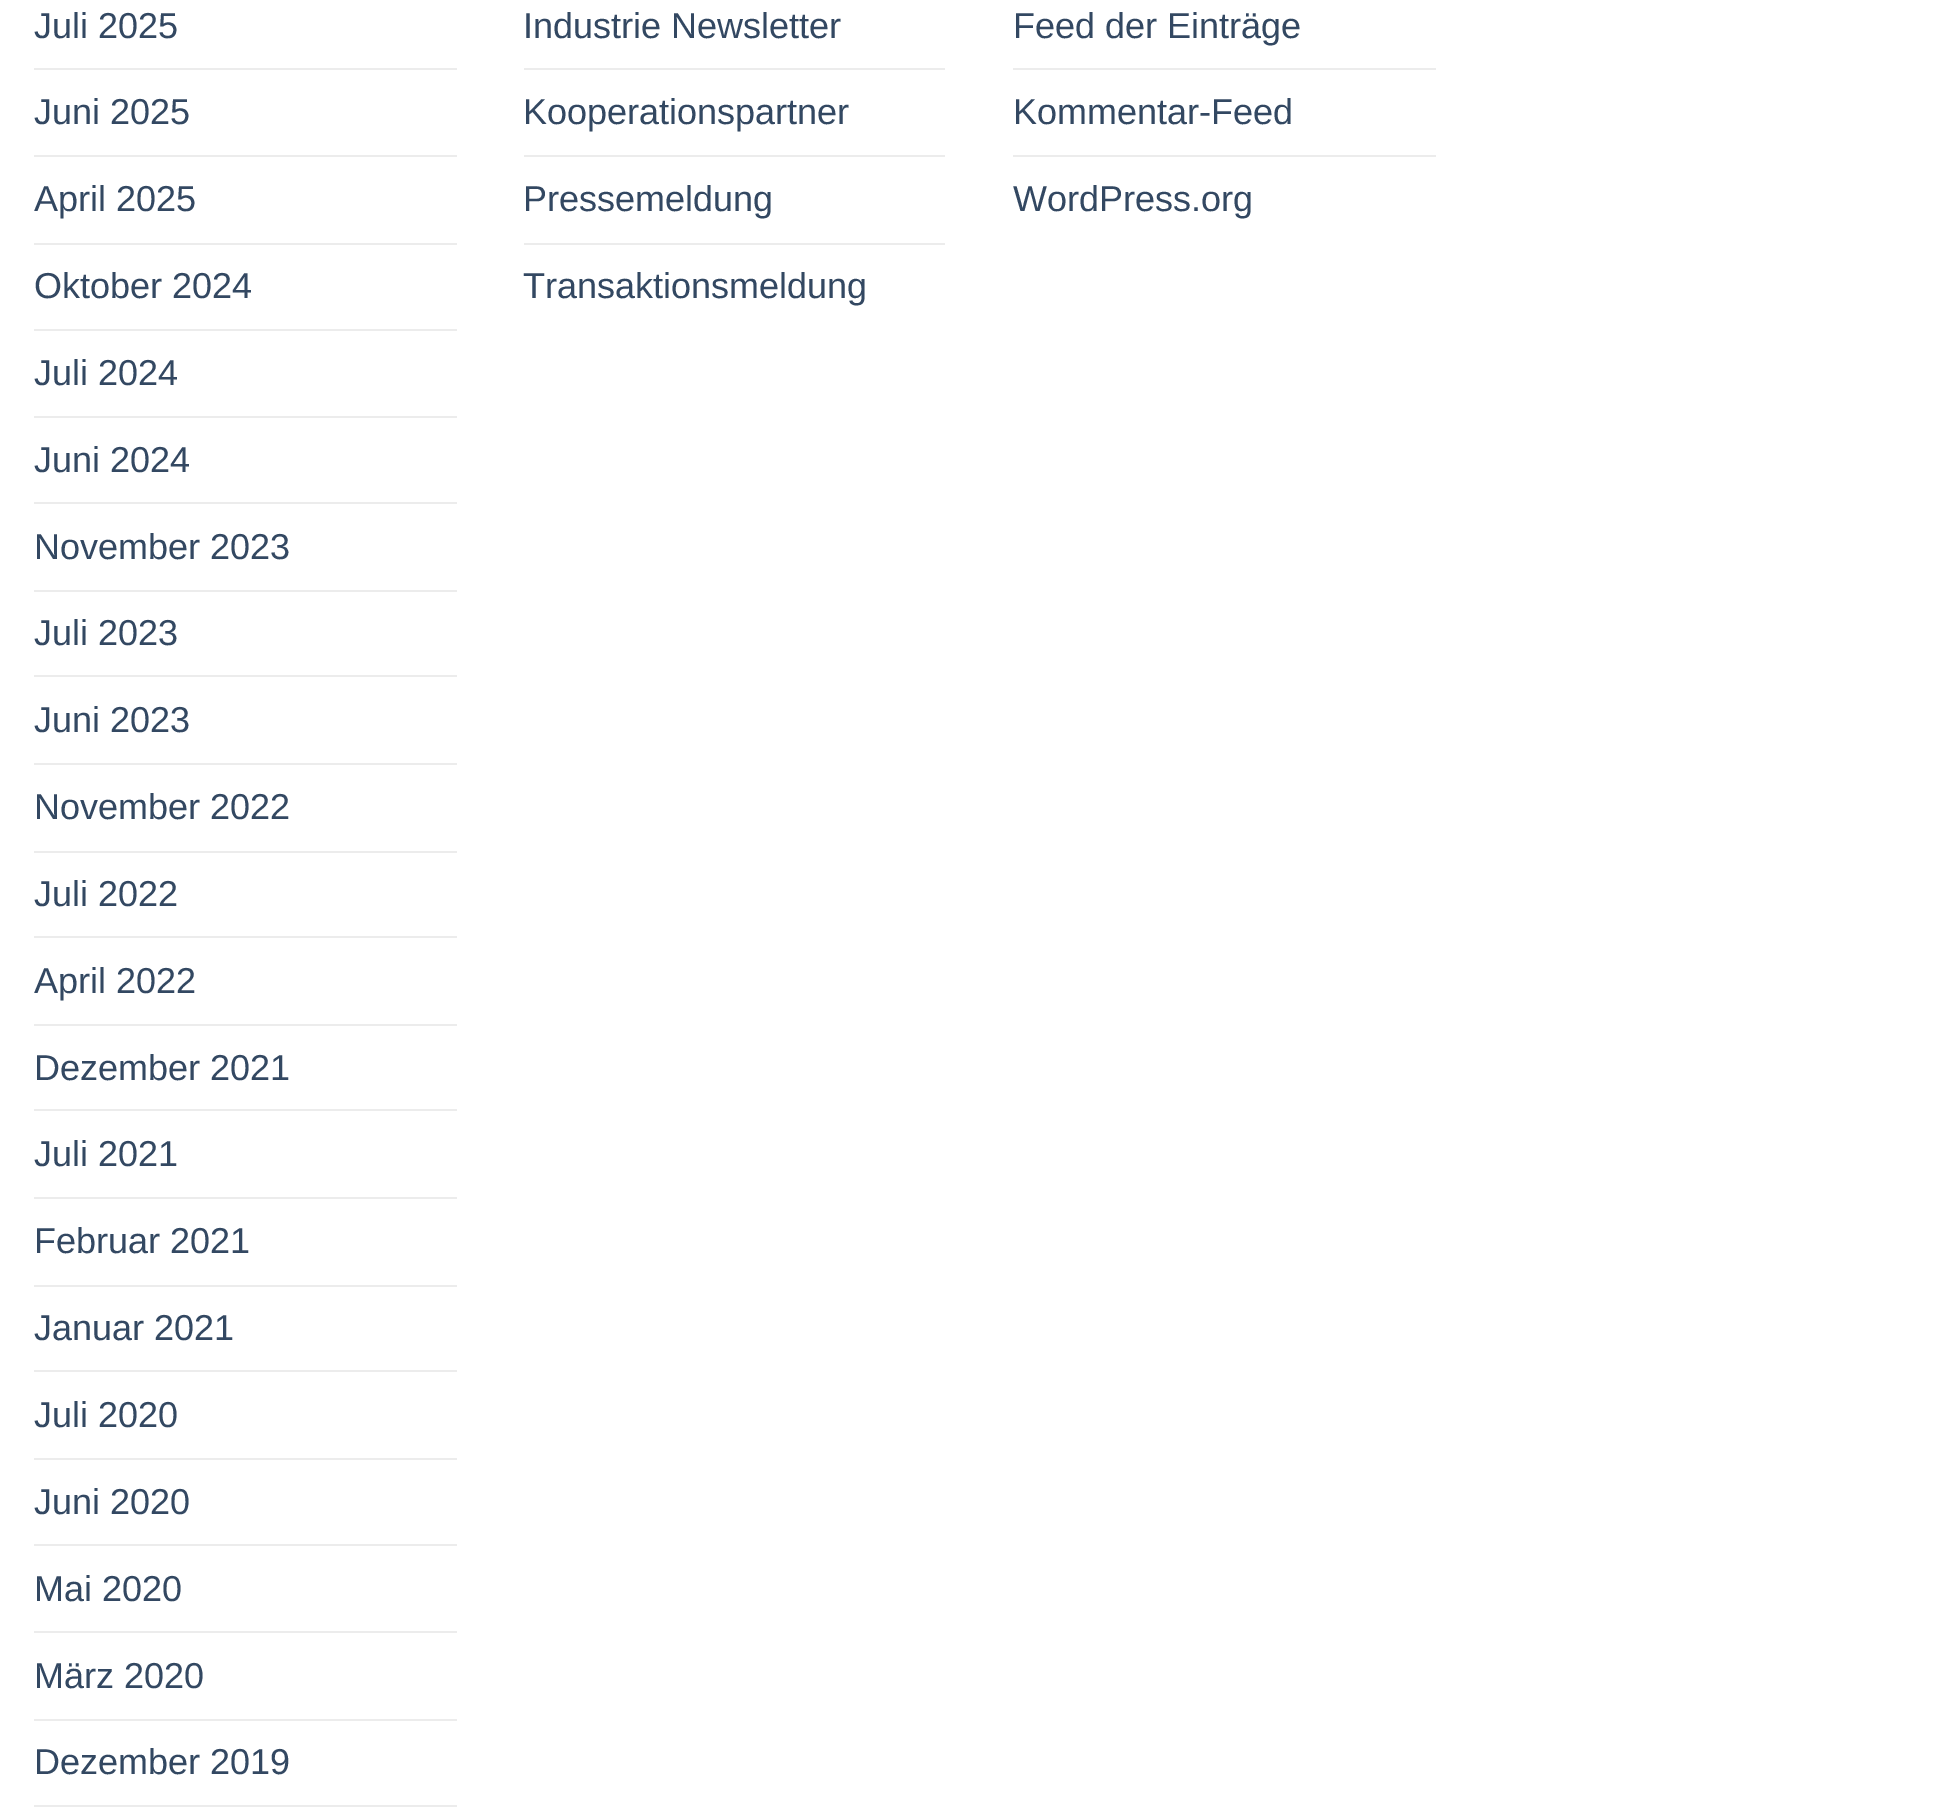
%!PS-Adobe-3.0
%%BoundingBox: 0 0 1956 1809
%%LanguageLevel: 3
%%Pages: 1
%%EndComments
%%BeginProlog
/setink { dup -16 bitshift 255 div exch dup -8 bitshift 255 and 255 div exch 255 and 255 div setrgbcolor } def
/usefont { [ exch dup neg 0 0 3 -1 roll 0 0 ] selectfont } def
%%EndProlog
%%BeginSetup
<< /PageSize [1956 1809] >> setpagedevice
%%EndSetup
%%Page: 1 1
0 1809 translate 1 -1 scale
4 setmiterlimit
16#FFFFFF setink
0 0 1956 1809 rectfill
/LiberationSans-Regular 36 usefont
16#334862 setink
34 38 moveto (Juli 2025) show
16#ECECEC setink
34 68 423 2 rectfill
16#334862 setink
34 124 moveto (Juni 2025) show
16#ECECEC setink
34 155 423 2 rectfill
16#334862 setink
34 211 moveto (April 2025) show
16#ECECEC setink
34 243 423 2 rectfill
16#334862 setink
34 298 moveto (Oktober 2024) show
16#ECECEC setink
34 329 423 2 rectfill
16#334862 setink
34 385 moveto (Juli 2024) show
16#ECECEC setink
34 416 423 2 rectfill
16#334862 setink
34 472 moveto (Juni 2024) show
16#ECECEC setink
34 502 423 2 rectfill
16#334862 setink
34 559 moveto (November 2023) show
16#ECECEC setink
34 590 423 2 rectfill
16#334862 setink
34 645 moveto (Juli 2023) show
16#ECECEC setink
34 675 423 2 rectfill
16#334862 setink
34 732 moveto (Juni 2023) show
16#ECECEC setink
34 763 423 2 rectfill
16#334862 setink
34 819 moveto (November 2022) show
16#ECECEC setink
34 851 423 2 rectfill
16#334862 setink
34 906 moveto (Juli 2022) show
16#ECECEC setink
34 936 423 2 rectfill
16#334862 setink
34 993 moveto (April 2022) show
16#ECECEC setink
34 1024 423 2 rectfill
16#334862 setink
34 1080 moveto (Dezember 2021) show
16#ECECEC setink
34 1109 423 2 rectfill
16#334862 setink
34 1166 moveto (Juli 2021) show
16#ECECEC setink
34 1197 423 2 rectfill
16#334862 setink
34 1253 moveto (Februar 2021) show
16#ECECEC setink
34 1285 423 2 rectfill
16#334862 setink
34 1340 moveto (Januar 2021) show
16#ECECEC setink
34 1370 423 2 rectfill
16#334862 setink
34 1427 moveto (Juli 2020) show
16#ECECEC setink
34 1458 423 2 rectfill
16#334862 setink
34 1514 moveto (Juni 2020) show
16#ECECEC setink
34 1544 423 2 rectfill
16#334862 setink
34 1601 moveto (Mai 2020) show
16#ECECEC setink
34 1631 423 2 rectfill
16#334862 setink
34 1688 moveto (März 2020) show
16#ECECEC setink
34 1719 423 2 rectfill
16#334862 setink
34 1774 moveto (Dezember 2019) show
16#ECECEC setink
34 1805 423 2 rectfill
16#334862 setink
523 38 moveto (Industrie Newsletter) show
16#ECECEC setink
524 68 421 2 rectfill
16#334862 setink
523 124 moveto (Kooperationspartner) show
16#ECECEC setink
524 155 421 2 rectfill
16#334862 setink
523 211 moveto (Pressemeldung) show
16#ECECEC setink
524 243 421 2 rectfill
16#334862 setink
523 298 moveto (Transaktionsmeldung) show
1013 38 moveto (Feed der Einträge) show
16#ECECEC setink
1013 68 423 2 rectfill
16#334862 setink
1013 124 moveto (Kommentar-Feed) show
16#ECECEC setink
1013 155 423 2 rectfill
16#334862 setink
1013 211 moveto (WordPress.org) show
showpage
%%EOF
